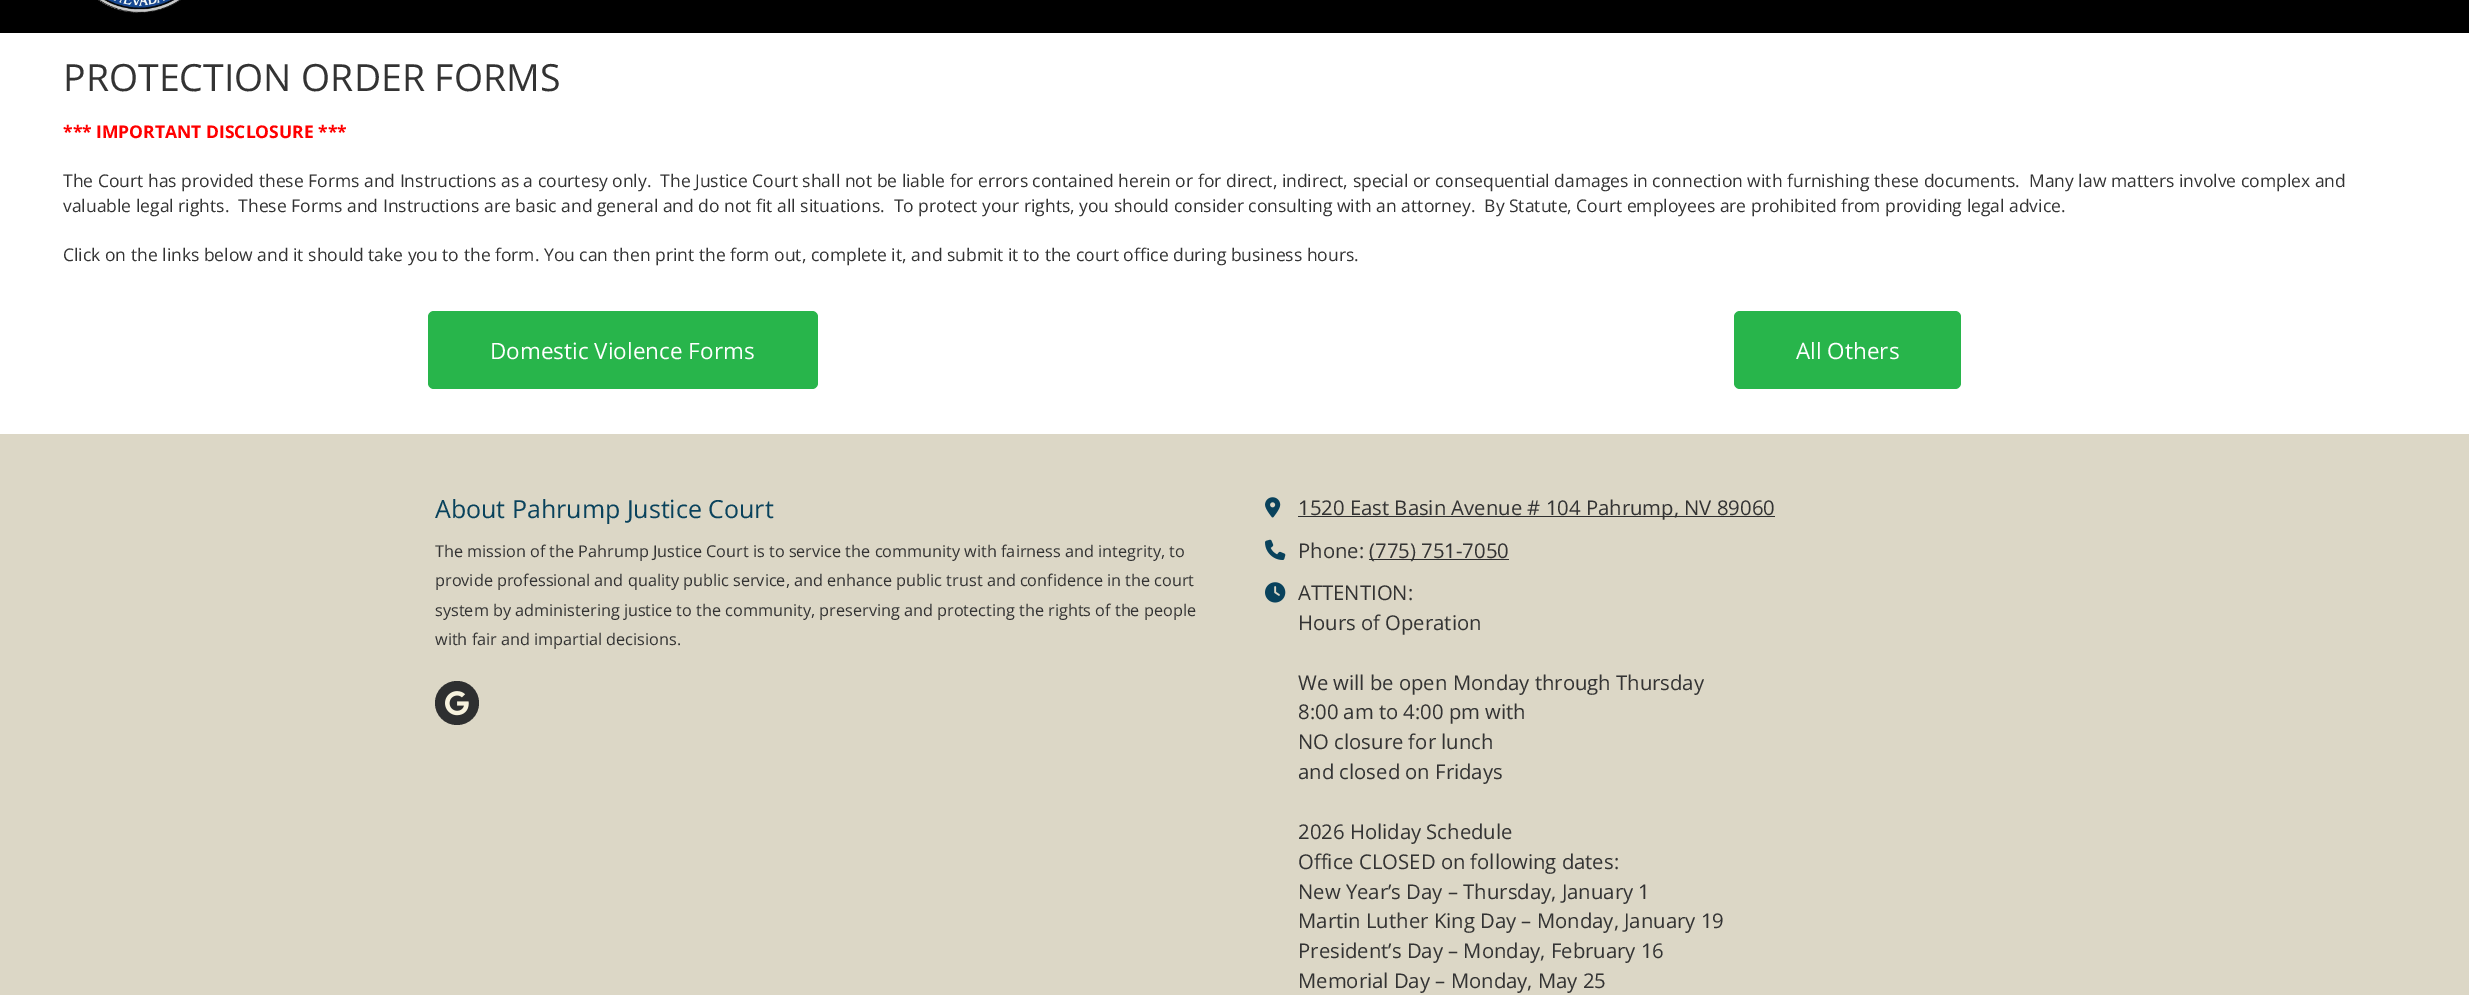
%!PS-Adobe-3.0
%%BoundingBox: 0 0 2469 995
%%LanguageLevel: 3
%%Pages: 1
%%EndComments
%%BeginProlog
/setink { dup -16 bitshift 255 div exch dup -8 bitshift 255 and 255 div exch 255 and 255 div setrgbcolor } def
/usefont { [ exch dup neg 0 0 3 -1 roll 0 0 ] selectfont } def
/disc { newpath 0 360 arc closepath } def
/rrect { 5 dict begin { /r /h /w /y /x } { exch def } forall
  x r add y moveto x w add y 2 copy h add r arct x w add y h add x 1 index r arct
  x y h add x y r arct x y 2 copy exch w add exch r arct closepath end } def
/drawimage { 5 dict begin { /h /w /y /x /name } { exch def } forall
  gsave x y translate w h scale
  w h 8 [w 0 0 h 0 0] name (r) file false 3 colorimage grestore end } def
%%EndProlog
%%BeginSetup
<< /PageSize [2469 995] >> setpagedevice
%%EndSetup
%%Page: 1 1
0 995 translate 1 -1 scale
4 setmiterlimit
16#000000 setink
0 0 2469 995 rectfill
(img1.raw) 98 0 83 13 drawimage
16#FFFFFF setink
0 33 2469 401 rectfill
/OpenSans-Regular 37.5 usefont
16#333333 setink
63 91 moveto (PROTECTION ORDER FORMS) show
/OpenSans-Bold 17.5 usefont
16#FF0000 setink
63 138 moveto (*** IMPORTANT DISCLOSURE ***) show
/OpenSans-Regular 17.5 usefont
16#333333 setink
[
    [(The Court has provided these Forms and Instructions as a courtesy only.  The Justice Court shall not be liable for errors contained herein or for direct, indirect, special or consequential damages in connection with furnishing these documents.  Many law matters involve complex and) 63 187]
    [(valuable legal rights.  These Forms and Instructions are basic and general and do not fit all situations.  To protect your rights, you should consider consulting with an attorney.  By Statute, Court employees are prohibited from providing legal advice.) 63 212]
    [(Click on the links below and it should take you to the form. You can then print the form out, complete it, and submit it to the court office during business hours.) 63 261]
] { aload pop moveto show } forall
16#28B54B setink
428 311 390 78 6 rrect fill
/OpenSans-Regular 22.5 usefont
16#FFFFFF setink
490 359 moveto (Domestic Violence Forms) show
16#28B54B setink
1734 311 227 78 6 rrect fill
16#FFFFFF setink
1796 359 moveto (All Others) show
16#DCD7C6 setink
0 434 2469 561 rectfill
/OpenSans-Regular 25 usefont
16#09425C setink
435 518 moveto (About Pahrump Justice Court) show
/OpenSans-Regular 16.25 usefont
16#333333 setink
[
    [(The mission of the Pahrump Justice Court is to service the community with fairness and integrity, to) 435 557]
    [(provide professional and quality public service, and enhance public trust and confidence in the court) 435 586]
    [(system by administering justice to the community, preserving and protecting the rights of the people) 435 616]
    [(with fair and impartial decisions.) 435 645]
] { aload pop moveto show } forall
16#2E2F30 setink
457 703 22 disc fill
(img2.raw) 445 691 24 25 drawimage
(img3.raw) 1265 497 16 21 drawimage
1298 516 477 1 rectfill
/OpenSans-Regular 20.3 usefont
16#333333 setink
1298 515 moveto (1520 East Basin Avenue # 104 Pahrump, NV 89060) show
(img4.raw) 1265 539 21 21 drawimage
1298 558 moveto (Phone:) show
16#2E2F30 setink
1369 559 140 1 rectfill
16#333333 setink
1369 558 moveto (\(775\) 751-7050) show
(img5.raw) 1265 582 21 21 drawimage
[
    [(ATTENTION:) 1298 600]
    [(Hours of Operation) 1298 630]
    [(We will be open Monday through Thursday) 1298 690]
    [(8:00 am to 4:00 pm with) 1298 719]
    [(NO closure for lunch) 1298 749]
    [(and closed on Fridays) 1298 779]
    [(2026 Holiday Schedule) 1298 839]
    [(Office CLOSED on following dates:) 1298 869]
    [(New Year’s Day – Thursday, January 1) 1298 899]
    [(Martin Luther King Day – Monday, January 19) 1298 928]
    [(President’s Day – Monday, February 16) 1298 958]
    [(Memorial Day – Monday, May 25) 1298 988]
] { aload pop moveto show } forall
showpage
%%EOF
